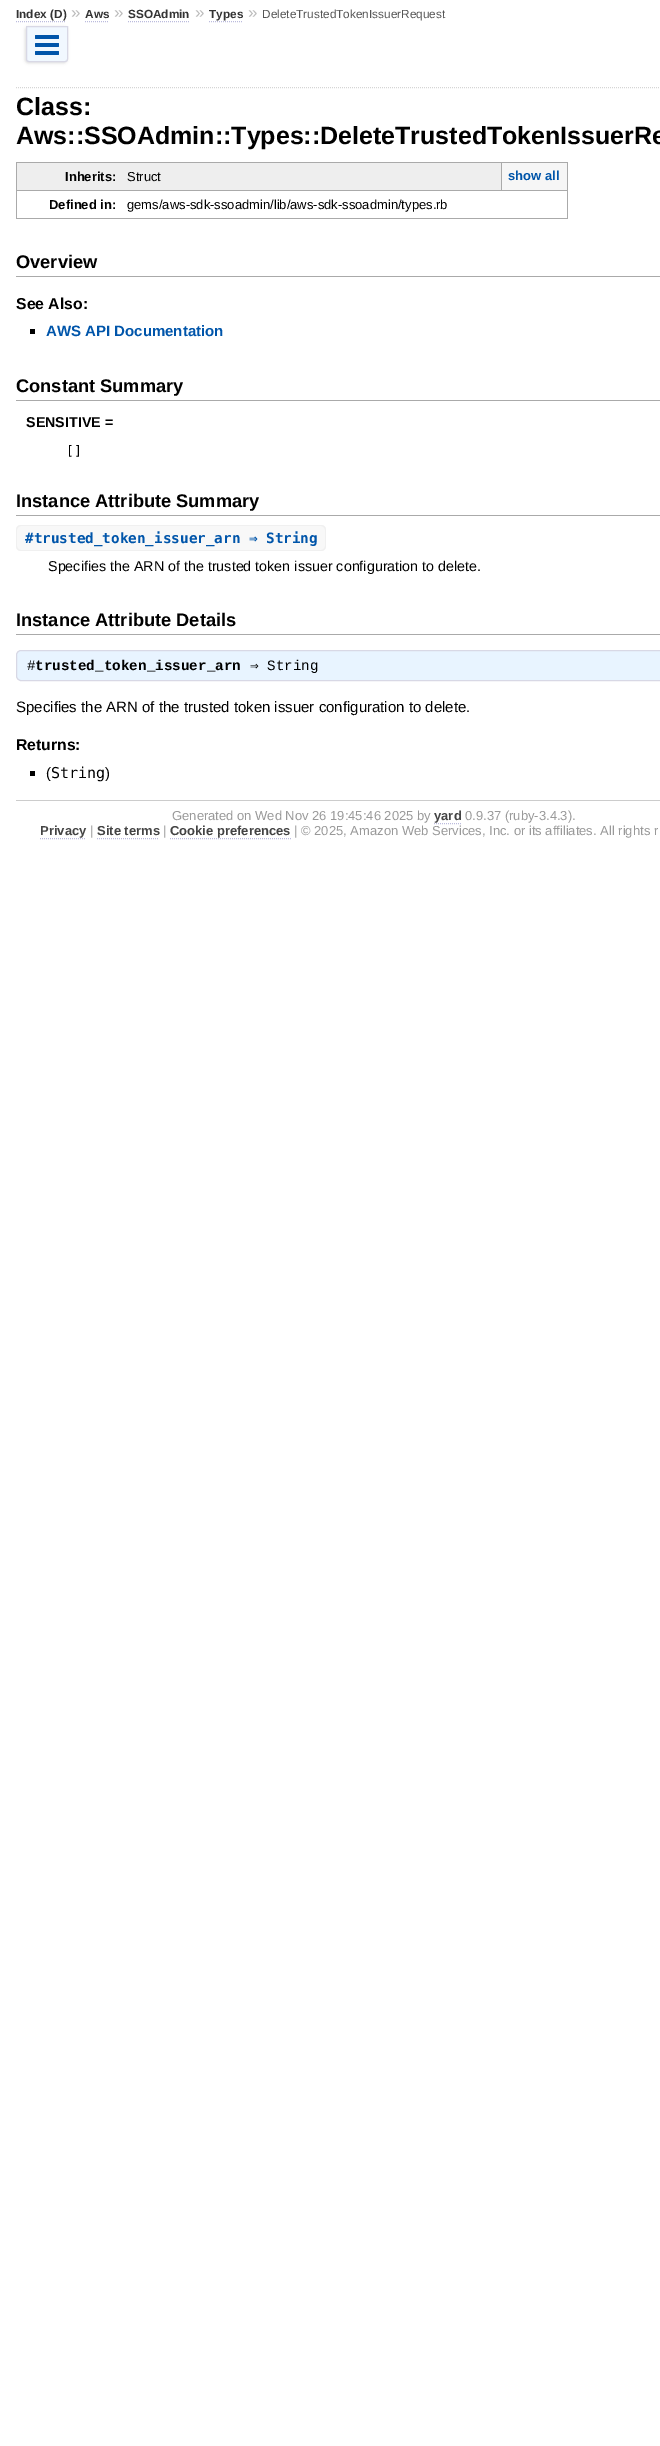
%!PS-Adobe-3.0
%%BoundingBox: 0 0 660 2446
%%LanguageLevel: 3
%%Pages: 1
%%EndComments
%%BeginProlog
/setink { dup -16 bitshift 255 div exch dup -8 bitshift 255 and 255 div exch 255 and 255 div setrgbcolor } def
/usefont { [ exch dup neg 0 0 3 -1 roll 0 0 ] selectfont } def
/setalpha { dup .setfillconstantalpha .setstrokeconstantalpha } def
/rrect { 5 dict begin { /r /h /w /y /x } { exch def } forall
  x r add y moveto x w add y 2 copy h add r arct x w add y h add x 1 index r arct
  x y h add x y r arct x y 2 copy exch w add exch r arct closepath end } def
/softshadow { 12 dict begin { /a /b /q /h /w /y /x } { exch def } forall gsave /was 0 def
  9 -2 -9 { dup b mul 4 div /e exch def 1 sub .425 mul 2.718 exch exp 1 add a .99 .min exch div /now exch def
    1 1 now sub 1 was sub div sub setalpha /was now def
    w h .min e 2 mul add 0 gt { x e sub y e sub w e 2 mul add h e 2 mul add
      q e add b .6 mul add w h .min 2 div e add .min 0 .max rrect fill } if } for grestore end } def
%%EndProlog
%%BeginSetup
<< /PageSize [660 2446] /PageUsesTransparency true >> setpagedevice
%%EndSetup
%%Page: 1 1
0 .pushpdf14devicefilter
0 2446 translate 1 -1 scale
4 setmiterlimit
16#FFFFFF setink
0 0 660 2446 rectfill
/LiberationSans-Bold 11.8 usefont
16#333333 setink
16 18 moveto (Index \(D\)) show
16#DDDDDD setink
25 27 42 36 3 1.5 1 softshadow
16#BBBBDD setink
[1 1] 0 setdash
16 21.5 moveto 66 21.5 lineto stroke
/LiberationSans-Regular 17 usefont
16#BBBBBB setink
71 18 moveto (») show
/LiberationSans-Bold 11.8 usefont
16#333333 setink
85 18 moveto (Aws) show
16#BBBBDD setink
85 21.5 moveto 109 21.5 lineto stroke
/LiberationSans-Regular 17 usefont
16#BBBBBB setink
114 18 moveto (») show
/LiberationSans-Bold 11.8 usefont
16#333333 setink
128 18 moveto (SSOAdmin) show
16#BBBBDD setink
128 21.5 moveto 190 21.5 lineto stroke
/LiberationSans-Regular 17 usefont
16#BBBBBB setink
195 18 moveto (») show
/LiberationSans-Bold 11.8 usefont
16#333333 setink
209 18 moveto (Types) show
16#BBBBDD setink
209 21.5 moveto 243 21.5 lineto stroke
/LiberationSans-Regular 17 usefont
16#BBBBBB setink
248 18 moveto (») show
/LiberationSans-Regular 11.8 usefont
16#555555 setink
262 18 moveto (DeleteTrustedTokenIssuerRequest) show
16#F1F8FF setink
26.5 26.5 moveto 67.5 26.5 lineto 67.5 59 lineto 67.5 60.5 66.5 61.5 65 61.5 curveto 29 61.5 lineto 27.5 61.5 26.5 60.5 26.5 59 curveto closepath gsave fill grestore
16#D8D8E5 setink
[] 0 setdash
stroke
16#0055AA setink
35 35 24 4 1 rrect fill
35 43 24 4 1 rrect fill
35 51 24 4 1 rrect fill
16#D5D5D5 setink
[1 1] 0 setdash
16 87.5 moveto 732 87.5 lineto stroke
/LiberationSans-Bold 25 usefont
16#000000 setink
16 115 moveto (Class:) show
16 144 moveto (Aws::SSOAdmin::Types::DeleteTrustedTokenIssuerRe) show
[
    [17 163 484 27 16#EEEEEE]
    [16 162 552 1 16#AAAAAA]
    [16 162 1 28 16#AAAAAA]
] { aload pop setink rectfill } forall
/LiberationSans-Bold 13 usefont
16#000000 setink
65 181 moveto (Inherits:) show
16#AAAAAA setink
16 190 552 1 rectfill
567 162 1 57 rectfill
/LiberationSans-Regular 13 usefont
16#000000 setink
127 181 moveto (Struct) show
16#F6F6F6 setink
502 163 65 27 rectfill
16#AAAAAA setink
501 163 1 27 rectfill
/LiberationSans-Bold 13 usefont
16#0055AA setink
508 180 moveto (show all) show
16#AAAAAA setink
16 218 111 1 rectfill
16 190 1 29 rectfill
16#000000 setink
49 209 moveto (Defined in:) show
16#AAAAAA setink
127 218 441 1 rectfill
/LiberationSans-Regular 13 usefont
16#000000 setink
127 209 moveto (gems/aws-sdk-ssoadmin/lib/aws-sdk-ssoadmin/types.rb) show
16#AAAAAA setink
16 276 644 1 rectfill
/LiberationSans-Bold 18.25 usefont
16#000000 setink
16 268 moveto (Overview) show
/LiberationSans-Bold 15.75 usefont
16 309 moveto (See Also:) show
30 329 5 5 rectfill
/LiberationSans-Bold 15 usefont
16#0055AA setink
46 336 moveto (AWS API Documentation) show
16#AAAAAA setink
16 400 644 1 rectfill
/LiberationSans-Bold 18.25 usefont
16#000000 setink
16 392 moveto (Constant Summary) show
/LiberationSans-Bold 14.3 usefont
26 427 moveto (SENSITIVE =) show
/DejaVuSansMono-Regular 13 usefont
66 455 moveto ([]) show
16#AAAAAA setink
16 515 644 1 rectfill
/LiberationSans-Bold 18.25 usefont
16#000000 setink
16 507 moveto (Instance Attribute Summary) show
16#F8F8F8 setink
21 525 moveto 33 525 lineto 33 551 lineto 21 551 lineto 18 551 16 549 16 546 curveto 16 530 lineto 16 527 18 525 21 525 curveto closepath fill
16#F0F0F0 setink
21 525 moveto 33 525 lineto 33 551 lineto 21 551 lineto 18 551 16 549 16 546 curveto 16 530 lineto 16 527 18 525 21 525 curveto closepath 21 526 moveto 33 526 lineto 33 550 lineto 21 550 lineto 19 550 17 548 17 546 curveto 17 530 lineto 17 528 19 526 21 526 curveto closepath eofill
16#F8F8F8 setink
33 526 207 24 rectfill
240 525 moveto 321 525 lineto 324 525 326 527 326 530 curveto 326 546 lineto 326 549 324 551 321 551 curveto 240 551 lineto closepath fill
16#F0F0F0 setink
240 525 moveto 321 525 lineto 324 525 326 527 326 530 curveto 326 546 lineto 326 549 324 551 321 551 curveto 240 551 lineto closepath 240 526 moveto 321 526 lineto 323 526 325 528 325 530 curveto 325 546 lineto 325 548 323 550 321 550 curveto 240 550 lineto closepath eofill
/DejaVuSansMono-Bold 14.3 usefont
16#0055AA setink
25 543 moveto (#trusted_token_issuer_arn ⇒ String) show
16#F0F0F0 setink
33 525 207 1 rectfill
33 550 207 1 rectfill
/LiberationSans-Regular 14.3 usefont
16#000000 setink
48 571 moveto (Specifies the ARN of the trusted token issuer configuration to delete.) show
16#AAAAAA setink
16 634 644 1 rectfill
/LiberationSans-Bold 18.25 usefont
16#000000 setink
16 626 moveto (Instance Attribute Details) show
16#E8F4FF setink
16.5 650.5 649 30 4.5 rrect gsave fill grestore
16#D8D8E5 setink
[] 0 setdash
stroke
/LiberationMono-Regular 14.3 usefont
16#000000 setink
27 670 moveto (#) show
/LiberationMono-Bold 14.3 usefont
35 670 moveto (trusted_token_issuer_arn) show
/DejaVuSansMono-Regular 14.3 usefont
250 670 moveto (⇒) show
/LiberationMono-Regular 14.3 usefont
267 670 moveto (String) show
/LiberationSans-Regular 15 usefont
16 712 moveto (Specifies the ARN of the trusted token issuer configuration to delete.) show
/LiberationSans-Bold 15.75 usefont
16 750 moveto (Returns:) show
30 771 5 5 rectfill
/LiberationSans-Regular 15 usefont
46 778 moveto (\() show
/DejaVuSansMono-Regular 15 usefont
51 778 moveto (String) show
/LiberationSans-Regular 15 usefont
105 778 moveto (\)) show
16#CCCCCC setink
16 800 644 1 rectfill
/LiberationSans-Regular 13 usefont
16#999999 setink
172 820 moveto (Generated on Wed Nov 26 19:45:46 2025 by) show
/LiberationSans-Bold 13 usefont
16#444444 setink
434 820 moveto (yard) show
16#BBBBDD setink
[1 1] 0 setdash
434 823.5 moveto 462 823.5 lineto stroke
/LiberationSans-Regular 13 usefont
16#999999 setink
465 820 moveto (0.9.37 \(ruby-3.4.3\).) show
/LiberationSans-Bold 13 usefont
16#444444 setink
40 835 moveto (Privacy) show
16#BBBBDD setink
40 838.5 moveto 86 838.5 lineto stroke
/LiberationSans-Regular 13 usefont
16#999999 setink
90 835 moveto (|) show
/LiberationSans-Bold 13 usefont
16#444444 setink
97 835 moveto (Site terms) show
16#BBBBDD setink
97 838.5 moveto 159 838.5 lineto stroke
/LiberationSans-Regular 13 usefont
16#999999 setink
163 835 moveto (|) show
/LiberationSans-Bold 13 usefont
16#444444 setink
170 835 moveto (Cookie preferences) show
16#BBBBDD setink
170 838.5 moveto 291 838.5 lineto stroke
/LiberationSans-Regular 13 usefont
16#999999 setink
294 835 moveto (| © 2025, Amazon Web Services, Inc. or its affiliates. All rights r) show
.poppdf14devicefilter showpage
%%EOF
